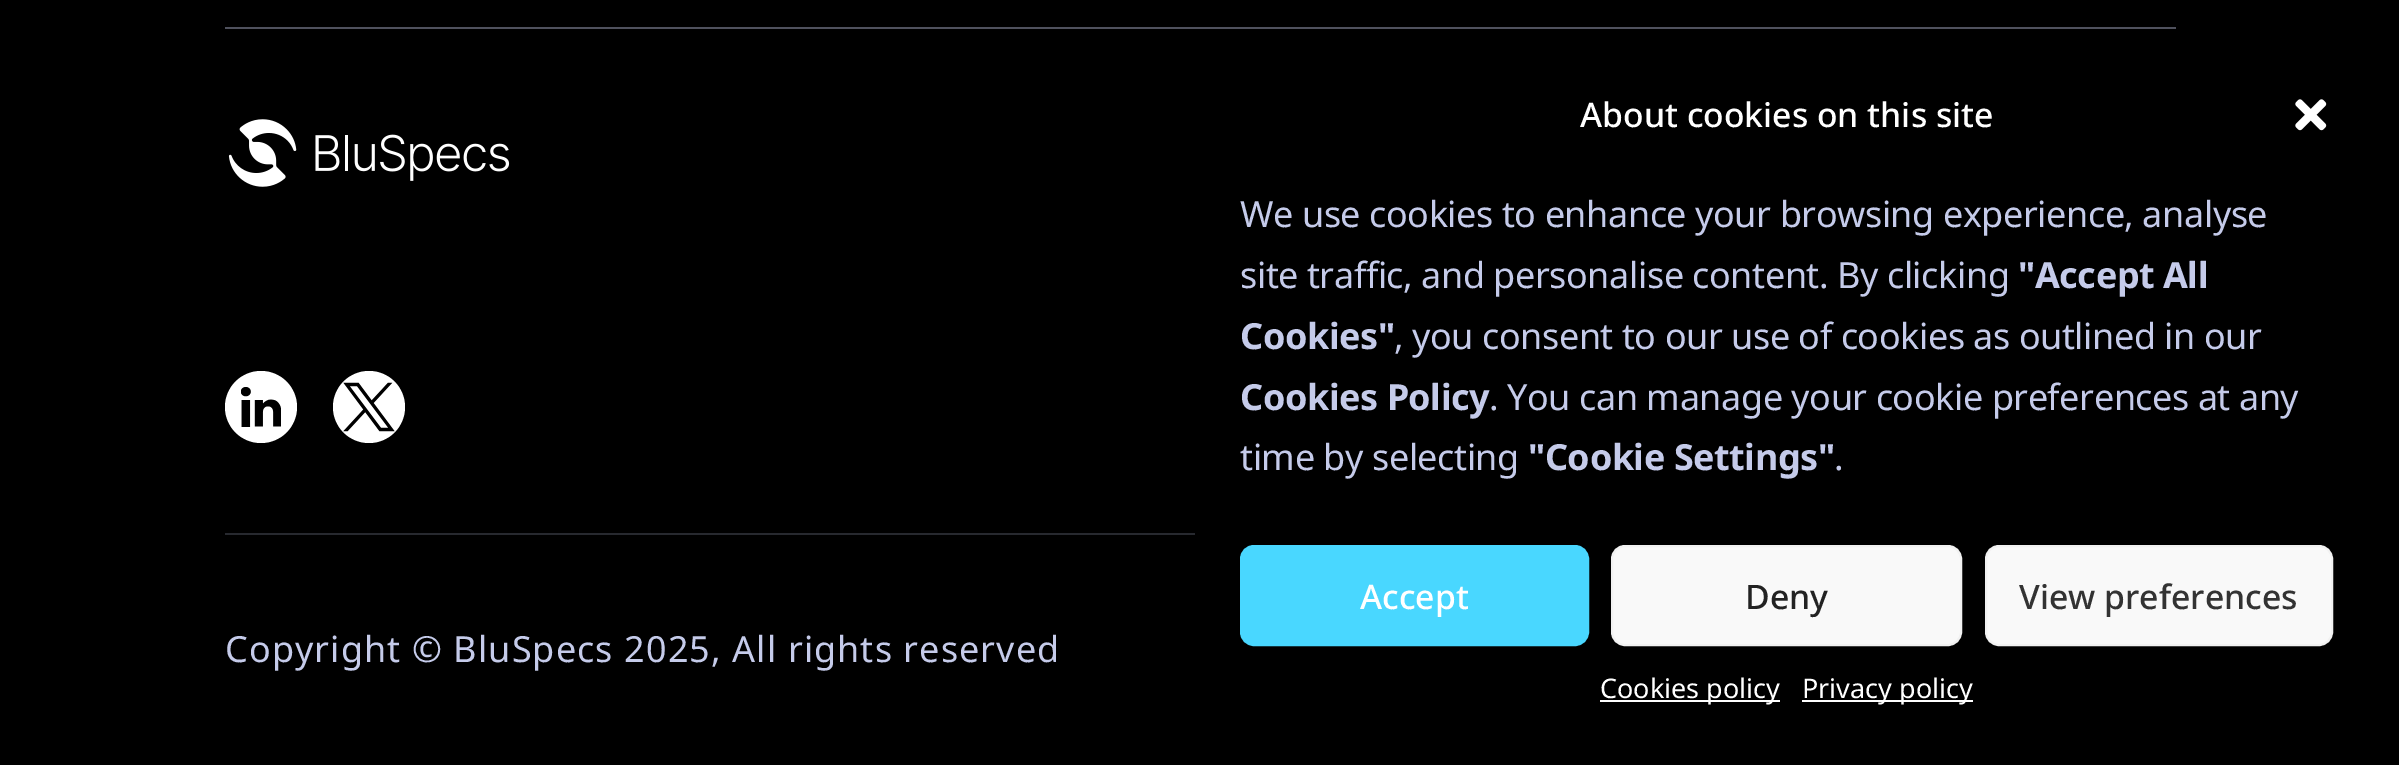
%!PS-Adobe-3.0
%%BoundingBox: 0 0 2399 765
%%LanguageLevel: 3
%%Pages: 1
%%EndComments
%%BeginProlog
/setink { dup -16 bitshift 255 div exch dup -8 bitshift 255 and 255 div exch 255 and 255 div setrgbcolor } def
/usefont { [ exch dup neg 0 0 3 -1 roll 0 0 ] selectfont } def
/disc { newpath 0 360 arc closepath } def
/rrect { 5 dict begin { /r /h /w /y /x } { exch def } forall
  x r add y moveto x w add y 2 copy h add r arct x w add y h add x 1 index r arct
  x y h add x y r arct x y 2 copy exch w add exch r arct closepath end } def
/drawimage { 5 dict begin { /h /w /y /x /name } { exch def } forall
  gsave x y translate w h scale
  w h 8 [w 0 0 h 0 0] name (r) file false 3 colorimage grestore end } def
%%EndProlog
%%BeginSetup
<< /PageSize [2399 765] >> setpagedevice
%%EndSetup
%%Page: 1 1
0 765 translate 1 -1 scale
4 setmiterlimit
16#000000 setink
0 0 2399 765 rectfill
16#4F515D setink
225 27 1951 2 rectfill
(img1.raw) 228 119 282 68 drawimage
16#FFFFFF setink
261 407 36 disc fill
(img2.raw) 241 387 40 40 drawimage
369 407 36 disc fill
(img3.raw) 343 382 52 50 drawimage
16#27292F setink
225 533 970 2 rectfill
/NotoSans-Regular 36 usefont
16#C5CBEA setink
225 662 moveto 1.1 0 (Copyright © BluSpecs 2025, All rights reserved) ashow
/NotoSans-Medium 33.75 usefont
16#FFFFFF setink
1580 127 moveto (About cookies on this site) show
(img4.raw) 2295 99 32 32 drawimage
/NotoSans-Regular 36 usefont
16#C5CBEA setink
1240 227 moveto -0.45 0 (We use cookies to enhance your browsing experience, analyse) ashow
1240 288 moveto -0.45 0 (site traffic, and personalise content. By clicking) ashow
/NotoSans-Bold 36 usefont
2018 288 moveto -0.45 0 ("Accept All) ashow
1240 349 moveto -0.45 0 (Cookies") ashow
/NotoSans-Regular 36 usefont
1394 349 moveto -0.45 0 (, you consent to our use of cookies as outlined in our) ashow
/NotoSans-Bold 36 usefont
1240 410 moveto -0.45 0 (Cookies Policy) ashow
/NotoSans-Regular 36 usefont
1489 410 moveto -0.45 0 (. You can manage your cookie preferences at any) ashow
1240 470 moveto -0.45 0 (time by selecting) ashow
/NotoSans-Bold 36 usefont
1528 470 moveto -0.45 0 ("Cookie Settings") ashow
/NotoSans-Regular 36 usefont
1834 470 moveto -0.45 0 (.) ashow
16#49D7FF setink
1241 546 347 99 13 rrect gsave fill grestore
2 setlinewidth
stroke
/NotoSans-Medium 33.75 usefont
16#FFFFFF setink
1360 609 moveto (Accept) show
16#F9F9F9 setink
1612 546 349 99 13 rrect gsave fill grestore
16#F2F2F2 setink
stroke
16#222222 setink
1745 609 moveto (Deny) show
16#F9F9F9 setink
1986 546 346 99 13 rrect gsave fill grestore
16#F2F2F2 setink
stroke
16#333333 setink
2019 609 moveto (View preferences) show
16#FFFFFF setink
1600 700 180 2 rectfill
/NotoSans-Regular 27 usefont
1600 698 moveto (Cookies policy) show
1802 700 171 2 rectfill
1802 698 moveto (Privacy policy) show
showpage
%%EOF
